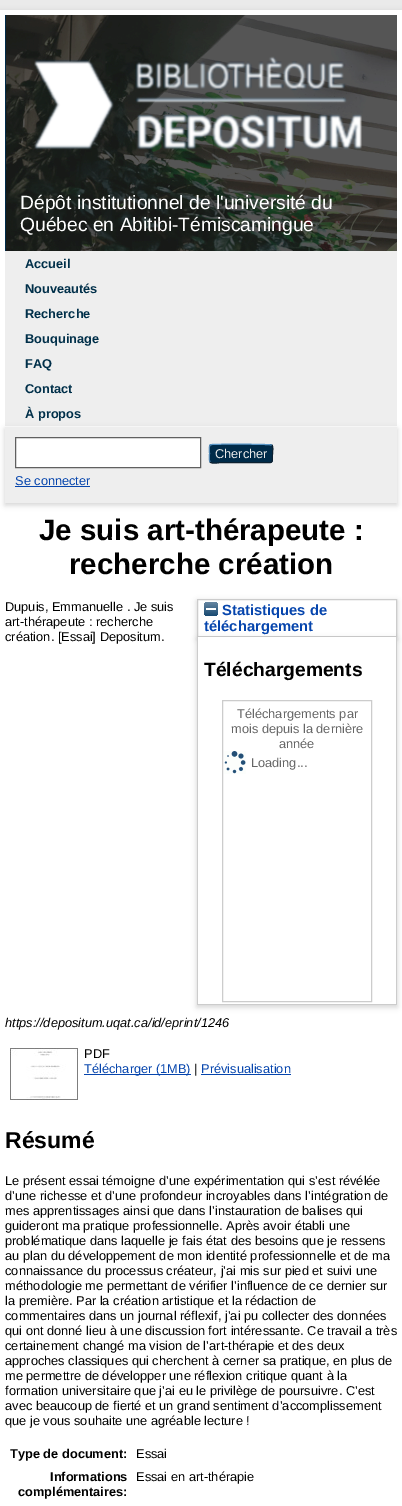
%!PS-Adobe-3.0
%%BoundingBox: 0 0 402 1506
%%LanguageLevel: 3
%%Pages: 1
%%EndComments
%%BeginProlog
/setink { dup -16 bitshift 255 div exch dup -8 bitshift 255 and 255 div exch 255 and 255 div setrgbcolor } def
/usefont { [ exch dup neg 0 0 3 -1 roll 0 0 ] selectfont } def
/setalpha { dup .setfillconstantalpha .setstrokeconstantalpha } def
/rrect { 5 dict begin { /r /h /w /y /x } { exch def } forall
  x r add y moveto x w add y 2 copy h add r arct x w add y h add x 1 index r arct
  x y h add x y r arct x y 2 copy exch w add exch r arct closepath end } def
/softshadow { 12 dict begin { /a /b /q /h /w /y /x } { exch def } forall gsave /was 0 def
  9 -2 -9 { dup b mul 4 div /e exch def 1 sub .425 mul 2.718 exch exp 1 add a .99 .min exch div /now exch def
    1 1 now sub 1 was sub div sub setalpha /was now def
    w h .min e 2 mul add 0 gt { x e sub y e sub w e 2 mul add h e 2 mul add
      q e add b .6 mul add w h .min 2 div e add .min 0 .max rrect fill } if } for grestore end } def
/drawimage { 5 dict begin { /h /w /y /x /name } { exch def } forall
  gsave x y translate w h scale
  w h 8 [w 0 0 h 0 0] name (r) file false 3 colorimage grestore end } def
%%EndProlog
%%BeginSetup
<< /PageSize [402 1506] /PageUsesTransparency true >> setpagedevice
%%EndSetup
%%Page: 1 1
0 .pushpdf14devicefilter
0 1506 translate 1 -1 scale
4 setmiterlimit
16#EAEAEA setink
0 0 402 1506 rectfill
16#646464 setink
0 12 402 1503 0 3 0.3 softshadow
16#FFFFFF setink
0 10 402 1496 rectfill
16#002B49 setink
5 15 1 236 rectfill
(img1.raw) 6 15 391 236 drawimage
(img2.raw) 34 56 328 94 drawimage
/LiberationSans-Regular 19.25 usefont
16#FFFFFF setink
20 209 moveto (Dépôt institutionnel de l'université du) show
20 231 moveto (Québec en Abitibi-Témiscamingue) show
16#EEEEEE setink
5 251 392 175 rectfill
/LiberationSans-Bold 12.8 usefont
16#002F49 setink
[
    [(Accueil) 25 268]
    [(Nouveautés) 25 293]
    [(Recherche) 25 318]
    [(Bouquinage) 25 343]
    [(FAQ) 25 368]
    [(Contact) 25 393]
] { aload pop moveto show } forall
16#646464 setink
5 429 392 76 0 3 0.3 softshadow
16#002F49 setink
25 418 moveto (À propos) show
16#EEEEEE setink
5 427 392 76 rectfill
16#FFFFFF setink
15.5 437.5 moveto 200.5 437.5 lineto 200.5 467.5 lineto 15.5 467.5 lineto closepath gsave fill grestore
16#606060 setink
stroke
16#002B49 setink
209 444 64 19 3 rrect fill
16#5B97C7 setink
210 445 moveto 212 444.5 lineto 217 444 270.5 444 271.5 445 curveto 272 445 lineto stroke
16#0D2131 setink
272 445 moveto 273.5 447 272.5 451.5 272.5 453.5 curveto 272.5 465 273 462.5 260.5 462.5 curveto 221.5 462.5 lineto 218 462.5 213 464.5 210 462 curveto stroke
16#5287B3 setink
210 462 moveto 209 460.5 209.5 455.5 209.5 453.5 curveto 209.5 451.5 209 446.5 210 445 curveto stroke
/LiberationSans-Regular 12.8 usefont
16#EBEBEB setink
215 458 moveto (Chercher) show
16#0645AD setink
15 485 moveto (Se connecter) show
15 486 75 1 rectfill
/LiberationSans-Bold 29.5 usefont
16#000000 setink
39 540 moveto (Je suis art-thérapeute :) show
69 574 moveto (recherche création) show
/LiberationSans-Regular 12.8 usefont
[
    [(Dupuis, Emmanuelle . Je suis) 5 611]
    [(art-thérapeute : recherche) 5 626]
    [(création. [Essai] Depositum.) 5 641]
] { aload pop moveto show } forall
/LiberationSans-Italic 12.8 usefont
5 1027 moveto (https://depositum.uqat.ca/id/eprint/1246) show
(img3.raw) 10 1048 68 52 drawimage
/LiberationSans-Regular 12.8 usefont
84 1058 moveto (PDF) show
16#0645AD setink
84 1074 107 1 rectfill
84 1073 moveto (Télécharger \(1MB\)) show
16#000000 setink
194 1073 moveto (|) show
16#0645AD setink
201 1073 moveto (Prévisualisation) show
201 1074 90 1 rectfill
/LiberationSans-Bold 23 usefont
16#000000 setink
5 1148 moveto (Résumé) show
/LiberationSans-Regular 12.8 usefont
[
    [(Le présent essai témoigne d’une expérimentation qui s’est révélée) 5 1185]
    [(d’une richesse et d’une profondeur incroyables dans l’intégration de) 5 1200]
    [(mes apprentissages ainsi que dans l’instauration de balises qui) 5 1215]
    [(guideront ma pratique professionnelle. Après avoir établi une) 5 1230]
    [(problématique dans laquelle je fais état des besoins que je ressens) 5 1245]
    [(au plan du développement de mon identité professionnelle et de ma) 5 1260]
    [(connaissance du processus créateur, j’ai mis sur pied et suivi une) 5 1275]
    [(méthodologie me permettant de vérifier l’influence de ce dernier sur) 5 1290]
    [(la première. Par la création artistique et la rédaction de) 5 1305]
    [(commentaires dans un journal réflexif, j’ai pu collecter des données) 5 1320]
    [(qui ont donné lieu à une discussion fort intéressante. Ce travail a très) 5 1335]
    [(certainement changé ma vision de l’art-thérapie et des deux) 5 1350]
    [(approches classiques qui cherchent à cerner sa pratique, en plus de) 5 1365]
    [(me permettre de développer une réflexion critique quant à la) 5 1380]
    [(formation universitaire que j’ai eu le privilège de poursuivre. C’est) 5 1395]
    [(avec beaucoup de fierté et un grand sentiment d’accomplissement) 5 1410]
    [(que je vous souhaite une agréable lecture !) 5 1425]
] { aload pop moveto show } forall
/LiberationSans-Bold 12.8 usefont
10 1458 moveto (Type de document:) show
/LiberationSans-Regular 12.8 usefont
136 1458 moveto (Essai) show
/LiberationSans-Bold 12.8 usefont
50 1481 moveto (Informations) show
18 1496 moveto (complémentaires:) show
/LiberationSans-Regular 12.8 usefont
136 1481 moveto (Essai en art-thérapie) show
gsave
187 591 moveto 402 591 lineto 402 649 lineto 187 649 lineto closepath 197 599 moveto 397 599 lineto 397 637 lineto 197 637 lineto closepath eoclip newpath
16#646464 setink
197 601 200 38 0 3 0.3 softshadow
grestore
16#CCCCCC setink
197.5 599.5 199 37 rectstroke
(img4.raw) 204 602 14 14 drawimage
/LiberationSans-Bold 14.75 usefont
16#0645AD setink
222 615 moveto (Statistiques de) show
16#646464 setink
197 639 200 368 0 3 0.3 softshadow
16#0645AD setink
204 631 moveto (téléchargement) show
[
    [198 637 198 367 16#FFFFFF]
    [396 637 1 368 16#CCCCCC]
    [197 1004 200 1 16#CCCCCC]
    [197 637 1 368 16#CCCCCC]
] { aload pop setink rectfill } forall
/LiberationSans-Bold 19.25 usefont
16#000000 setink
204 676 moveto (Téléchargements) show
16#CCCCCC setink
222.5 700.5 149 301 rectstroke
/LiberationSans-Regular 12.8 usefont
16#666666 setink
[
    [(Téléchargements par) 237 718]
    [(mois depuis la dernière) 231 733]
    [(année) 279 748]
] { aload pop moveto show } forall
(img5.raw) 224 751 22 23 drawimage
251 767 moveto (Loading...) show
.poppdf14devicefilter showpage
%%EOF
